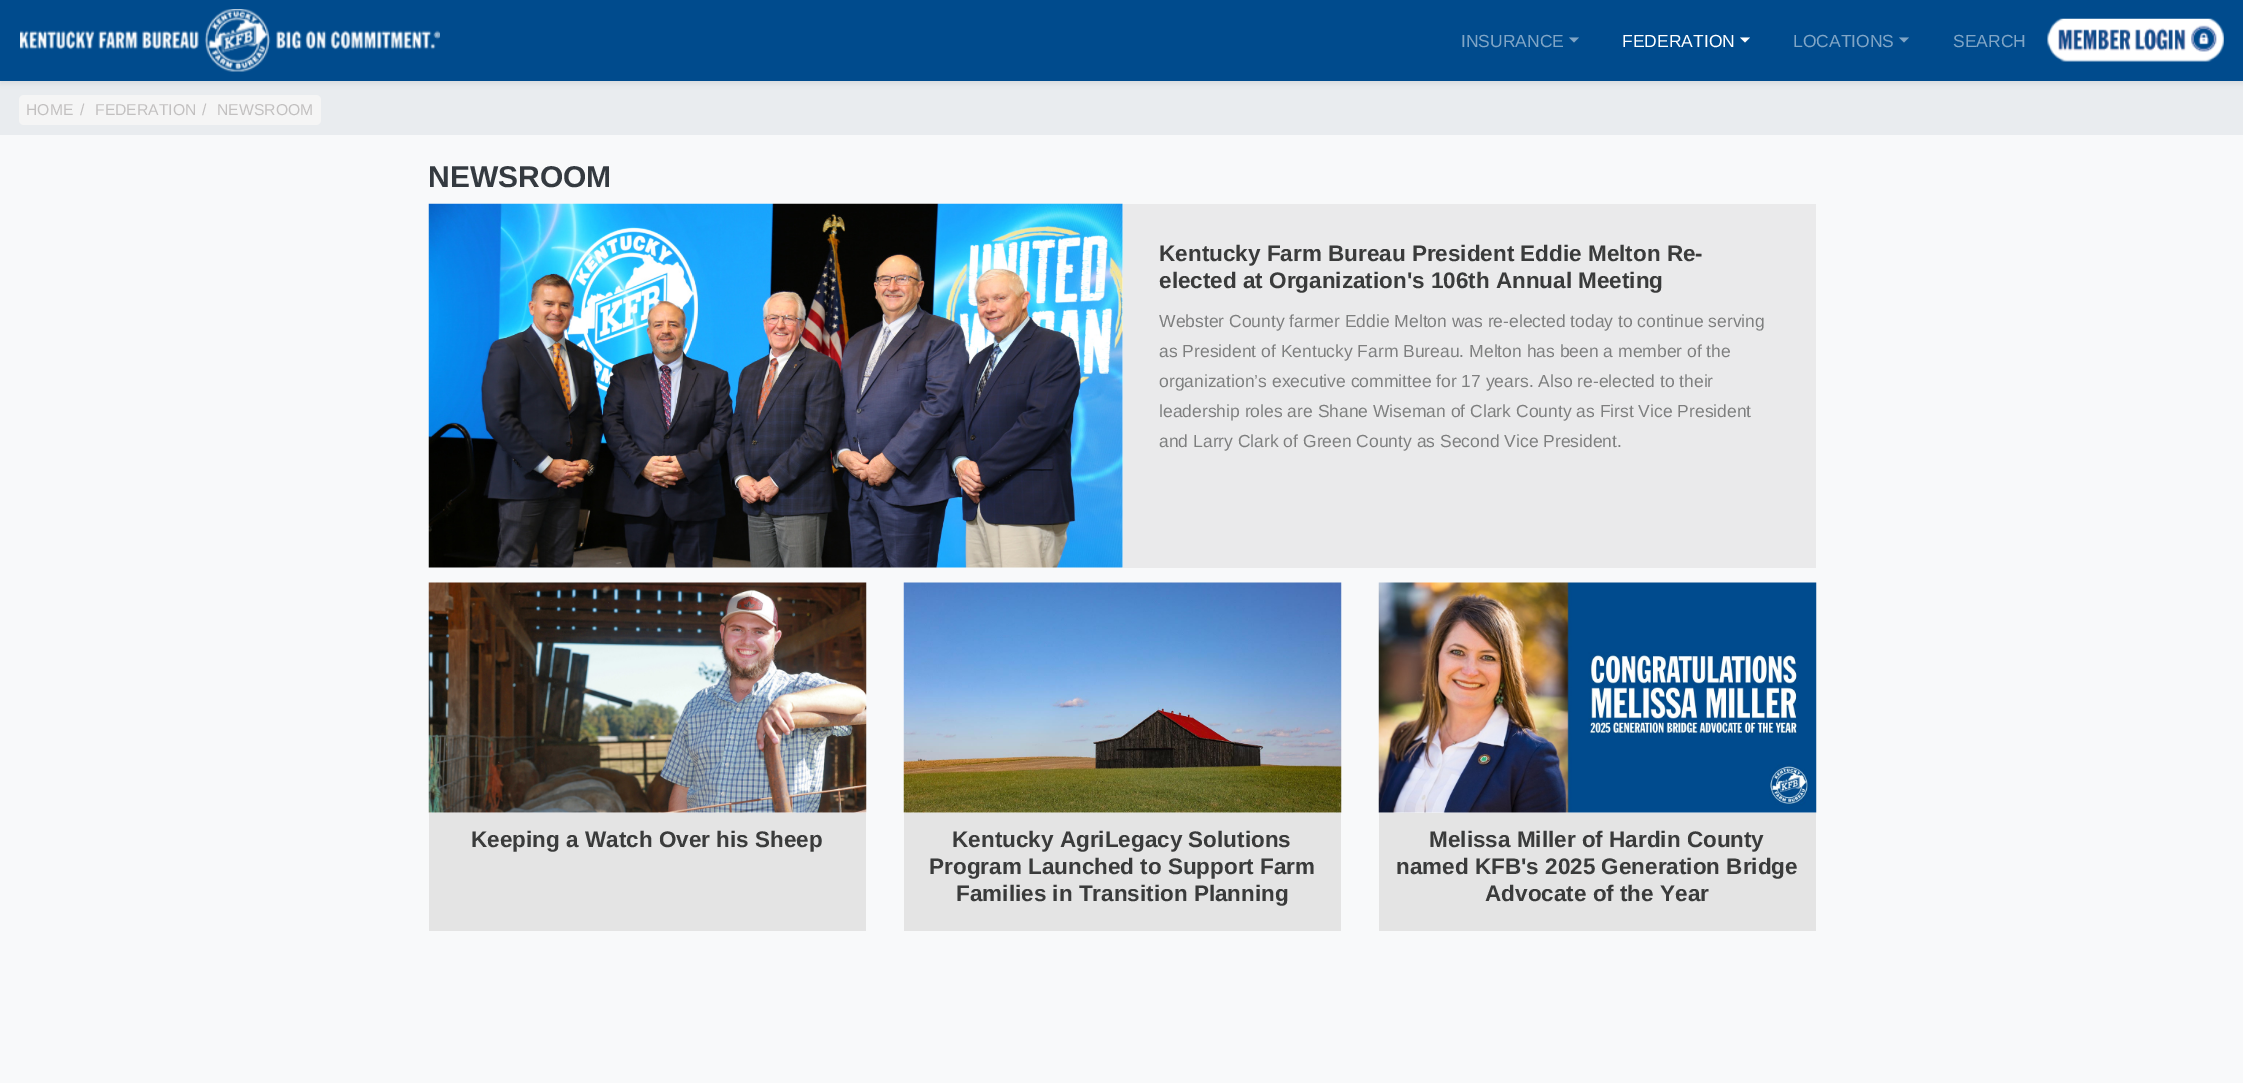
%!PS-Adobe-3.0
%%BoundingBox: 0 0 2243 1083
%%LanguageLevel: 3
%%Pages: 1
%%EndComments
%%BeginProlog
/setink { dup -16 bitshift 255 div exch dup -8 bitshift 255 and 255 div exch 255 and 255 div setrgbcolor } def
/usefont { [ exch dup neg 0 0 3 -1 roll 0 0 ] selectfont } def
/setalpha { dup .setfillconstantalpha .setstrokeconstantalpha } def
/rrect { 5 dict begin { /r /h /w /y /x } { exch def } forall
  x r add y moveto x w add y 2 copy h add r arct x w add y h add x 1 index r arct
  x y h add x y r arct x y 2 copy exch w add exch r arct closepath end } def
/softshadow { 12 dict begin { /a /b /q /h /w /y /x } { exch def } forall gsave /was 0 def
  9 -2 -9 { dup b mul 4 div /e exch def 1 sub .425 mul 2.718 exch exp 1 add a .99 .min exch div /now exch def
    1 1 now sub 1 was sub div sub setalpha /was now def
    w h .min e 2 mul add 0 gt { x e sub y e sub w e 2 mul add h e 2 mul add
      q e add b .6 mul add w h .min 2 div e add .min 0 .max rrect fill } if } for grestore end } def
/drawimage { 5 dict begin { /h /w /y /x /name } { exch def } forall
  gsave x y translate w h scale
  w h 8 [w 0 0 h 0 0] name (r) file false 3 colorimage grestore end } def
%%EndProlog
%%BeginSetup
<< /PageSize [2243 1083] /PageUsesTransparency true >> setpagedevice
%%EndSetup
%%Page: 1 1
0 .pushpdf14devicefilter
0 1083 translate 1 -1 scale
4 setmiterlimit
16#F8F9FA setink
0 0 2243 1083 rectfill
16#E9ECEF setink
0 81 2243 54 rectfill
16#343A40 setink
0 3 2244 81 0 2.5 0.07 softshadow
16#004B8D setink
0 0 2243 81 rectfill
(img1.raw) 20 9 420 63 drawimage
/LiberationSans-Regular 17.5 usefont
16#80A5C6 setink
1461 47 moveto (INSURANCE) show
1569 37.5 moveto 1579 37.5 lineto 1574 42.5 lineto closepath fill
16#FFFFFF setink
1622 47 moveto (FEDERATION) show
1740 37.5 moveto 1750 37.5 lineto 1745 42.5 lineto closepath fill
16#80A5C6 setink
1793 47 moveto (LOCATIONS) show
1899 37.5 moveto 1909 37.5 lineto 1904 42.5 lineto closepath fill
1953 47 moveto (SEARCH) show
(img2.raw) 2047 18 177 44 drawimage
16#F5F5F5 setink
19 95 302 30 5 rrect fill
/LiberationSans-Regular 15.75 usefont
16#C2C0C0 setink
[
    [(HOME) 26 115]
    [(/) 80 115]
    [(FEDERATION) 95 115]
    [(/) 202 115]
    [(NEWSROOM) 217 115]
] { aload pop moveto show } forall
/LiberationSans-Bold 30 usefont
16#343A40 setink
428 187 moveto (NEWSROOM) show
(img3.raw) 428 203 695 365 drawimage
16#EAEAEB setink
1123 204 693 364 rectfill
/LiberationSans-Bold 22.5 usefont
16#3A3B3B setink
1159 261 moveto (Kentucky Farm Bureau President Eddie Melton Re-) show
1159 288 moveto (elected at Organization's 106th Annual Meeting) show
/LiberationSans-Regular 17.5 usefont
16#7E7F7F setink
[
    [(Webster County farmer Eddie Melton was re-elected today to continue serving) 1159 327]
    [(as President of Kentucky Farm Bureau. Melton has been a member of the) 1159 357]
    [(organization’s executive committee for 17 years. Also re-elected to their) 1159 387]
    [(leadership roles are Shane Wiseman of Clark County as First Vice President) 1159 417]
    [(and Larry Clark of Green County as Second Vice President.) 1159 447]
] { aload pop moveto show } forall
(img4.raw) 428 582 439 231 drawimage
16#E4E4E4 setink
429 813 437 118 rectfill
/LiberationSans-Bold 22.5 usefont
16#3A3B3B setink
471 847 moveto (Keeping a Watch Over his Sheep) show
(img5.raw) 903 582 439 231 drawimage
16#E4E4E4 setink
904 813 437 118 rectfill
16#3A3B3B setink
[
    [(Kentucky AgriLegacy Solutions) 952 847]
    [(Program Launched to Support Farm) 929 874]
    [(Families in Transition Planning) 956 901]
] { aload pop moveto show } forall
(img6.raw) 1378 582 439 231 drawimage
16#E4E4E4 setink
1379 813 437 118 rectfill
16#3A3B3B setink
[
    [(Melissa Miller of Hardin County) 1429 847]
    [(named KFB's 2025 Generation Bridge) 1396 874]
    [(Advocate of the Year) 1485 901]
] { aload pop moveto show } forall
.poppdf14devicefilter showpage
%%EOF
